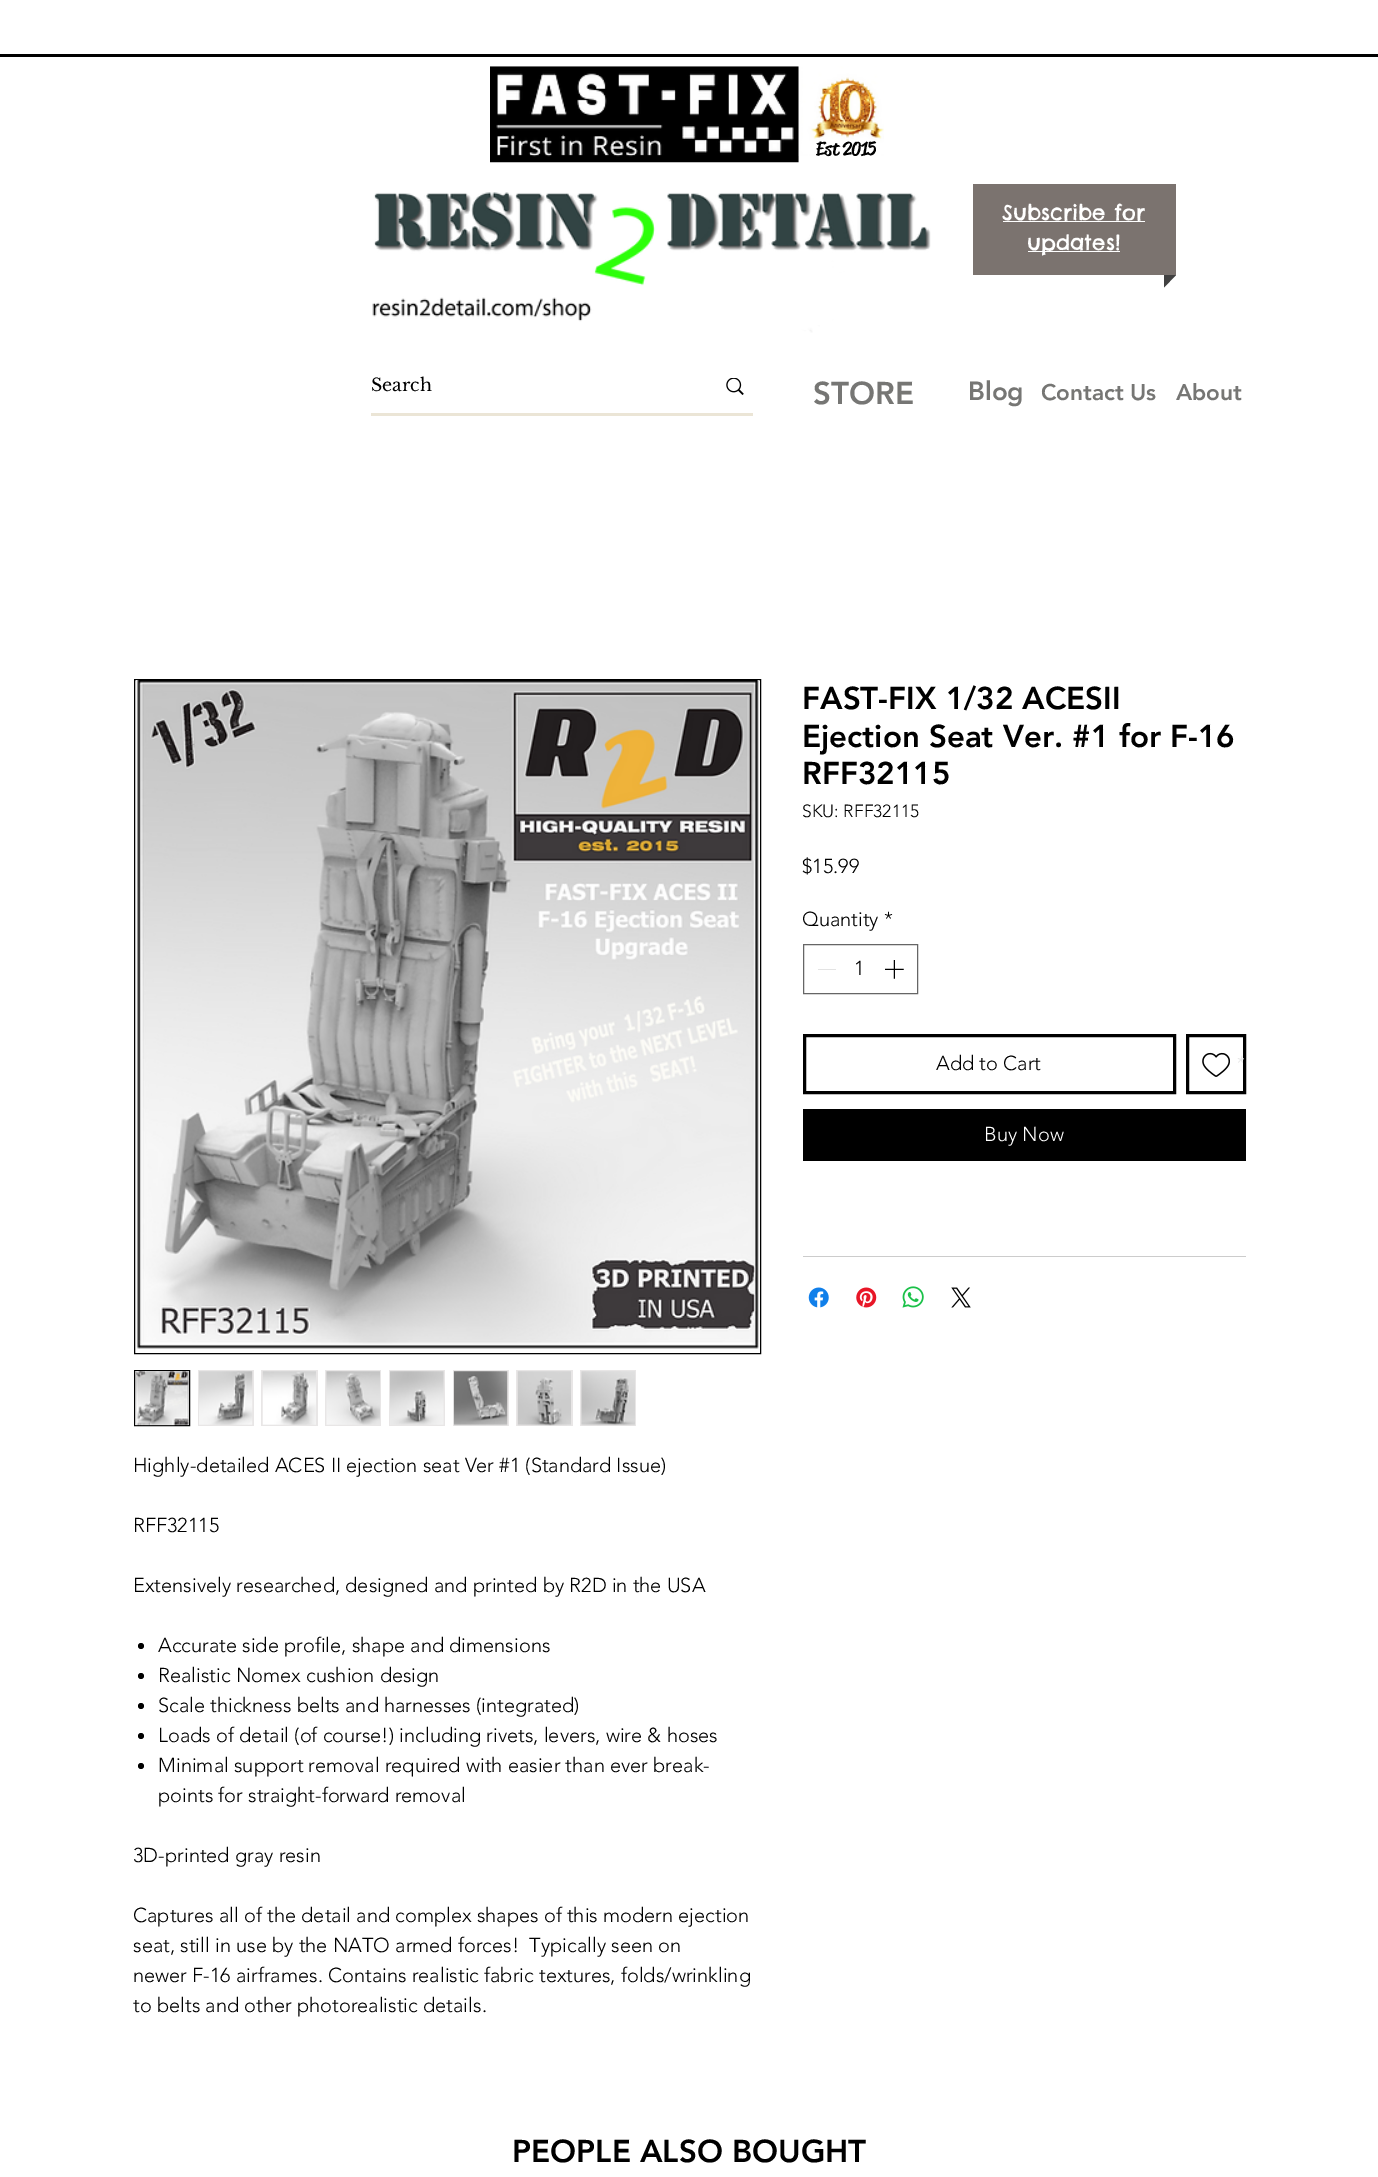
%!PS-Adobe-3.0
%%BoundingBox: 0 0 1378 2177
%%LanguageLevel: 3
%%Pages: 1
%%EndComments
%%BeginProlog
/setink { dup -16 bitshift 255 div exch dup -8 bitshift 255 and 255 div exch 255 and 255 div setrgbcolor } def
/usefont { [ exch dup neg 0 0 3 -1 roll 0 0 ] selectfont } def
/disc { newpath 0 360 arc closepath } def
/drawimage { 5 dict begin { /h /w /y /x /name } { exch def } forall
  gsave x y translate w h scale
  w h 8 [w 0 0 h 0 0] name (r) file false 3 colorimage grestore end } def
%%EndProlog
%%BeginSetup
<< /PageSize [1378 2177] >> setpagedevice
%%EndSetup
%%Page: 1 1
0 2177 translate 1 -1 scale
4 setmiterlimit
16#FFFFFF setink
0 0 1378 2177 rectfill
16#000000 setink
0 54 1378 3 rectfill
(img1.raw) 490 66 309 97 drawimage
(img2.raw) 798 66 86 90 drawimage
/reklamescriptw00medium-Medium 19 usefont
816 155 moveto (Est 2015) show
(img3.raw) 372 192 559 141 drawimage
16#7B736F setink
973 184 203 91 rectfill
16#FFFFFF setink
1003 221 142 1 rectfill
/ChelseaMarket-Regular 21.25 usefont
1002 220 moveto (Subscribe for) show
1028 251 92 1 rectfill
1027 250 moveto (updates!) show
16#414141 setink
1164 275 moveto 1176 275 lineto 1164 287.5 lineto closepath fill
16#EBE5D6 setink
371 413 382 3 rectfill
/LibreBaskerville-Regular 17.5 usefont
16#000000 setink
371 391 moveto (Search) show
(img4.raw) 726 378 18 17 drawimage
/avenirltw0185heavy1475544-Black 31.25 usefont
16#767674 setink
813 404 moveto (STORE) show
/avenirltw0185heavy1475544-Black 26 usefont
968 400 moveto (Blog) show
/avenirltw0185heavy1475544-Black 22.5 usefont
1041 400 moveto (Contact Us) show
1176 400 moveto (About) show
/avenirltw0185heavy1475544-Black 31.25 usefont
16#000000 setink
[
    [(FAST-FIX 1/32 ACESII) 802 709]
    [(Ejection Seat Ver. #1 for F-16) 802 747]
    [(RFF32115) 802 784]
] { aload pop moveto show } forall
/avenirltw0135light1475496-Light 17.5 usefont
802 817 moveto (SKU: RFF32115) show
/avenirltw0135light1475496-Light 20 usefont
802 873 moveto ($15.99) show
802 926 moveto (Quantity *) show
16#666666 setink
803.5 944.5 114 49 rectstroke
16#E3E3E3 setink
818 969 18 1 rectfill
16#000000 setink
854 975 moveto (1) show
(img5.raw) 885 960 19 19 drawimage
3 setlinewidth
804.5 1035.5 370 57 rectstroke
936 1070 moveto (Add to Cart) show
1187.5 1035.5 57 57 rectstroke
(img6.raw) 1202 1052 28 25 drawimage
gsave
1189 1044 55 40 rectclip
/avenirltw0135light1475496-LightItalic 20 usefont
16#E7E7E7 setink
1234 1070 moveto (*) show
grestore
803 1109 443 52 rectfill
16#FFFFFF setink
984 1141 moveto (Buy Now) show
16#CCCCCC setink
803 1256 443 1 rectfill
(img7.raw) 808 1287 21 21 drawimage
(img8.raw) 856 1287 21 21 drawimage
(img9.raw) 902 1286 22 22 drawimage
(img10.raw) 951 1287 20 21 drawimage
16#000000 setink
1 setlinewidth
134.5 679.5 626 674 rectstroke
(img11.raw) 136 680 623 669 drawimage
16#E8E6E6 setink
134.5 1370.5 moveto 189.5 1370.5 lineto 189.5 1425.5 lineto 134.5 1425.5 lineto closepath gsave fill grestore
16#000000 setink
stroke
(img12.raw) 135 1371 54 55 drawimage
16#E8E6E6 setink
198 1370 56 56 rectfill
(img13.raw) 199 1371 54 54 drawimage
261 1370 57 56 rectfill
(img14.raw) 262 1371 54 54 drawimage
325 1370 56 56 rectfill
(img15.raw) 326 1371 54 54 drawimage
389 1370 56 56 rectfill
(img16.raw) 390 1371 54 54 drawimage
453 1370 56 56 rectfill
(img17.raw) 453 1371 55 55 drawimage
516 1370 57 56 rectfill
(img18.raw) 517 1371 54 55 drawimage
580 1370 56 56 rectfill
(img19.raw) 581 1371 54 55 drawimage
16#000000 setink
[
    [(Highly-detailed ACES II ejection seat Ver #1 \(Standard Issue\)) 133 1472]
    [(RFF32115) 133 1532]
    [(Extensively researched, designed and printed by R2D in the USA) 133 1592]
] { aload pop moveto show } forall
141 1646 3 disc fill
158 1652 moveto (Accurate side profile, shape and dimensions) show
141 1676 3 disc fill
158 1682 moveto (Realistic Nomex cushion design) show
141 1706 3 disc fill
158 1712 moveto (Scale thickness belts and harnesses \(integrated\)) show
141 1736 3 disc fill
158 1742 moveto (Loads of detail \(of course!\) including rivets, levers, wire & hoses) show
141 1766 3 disc fill
[
    [(Minimal support removal required with easier than ever break-) 158 1772]
    [(points for straight-forward removal) 158 1802]
    [(3D-printed gray resin) 133 1862]
    [(Captures all of the detail and complex shapes of this modern ejection) 133 1922]
    [(seat, still in use by the NATO armed forces!  Typically seen on) 133 1952]
    [(newer F-16 airframes. Contains realistic fabric textures, folds/wrinkling) 133 1982]
    [(to belts and other photorealistic details.) 133 2012]
] { aload pop moveto show } forall
/avenirltw0185heavy1475544-Black 31.25 usefont
512 2162 moveto (PEOPLE ALSO BOUGHT) show
showpage
%%EOF
